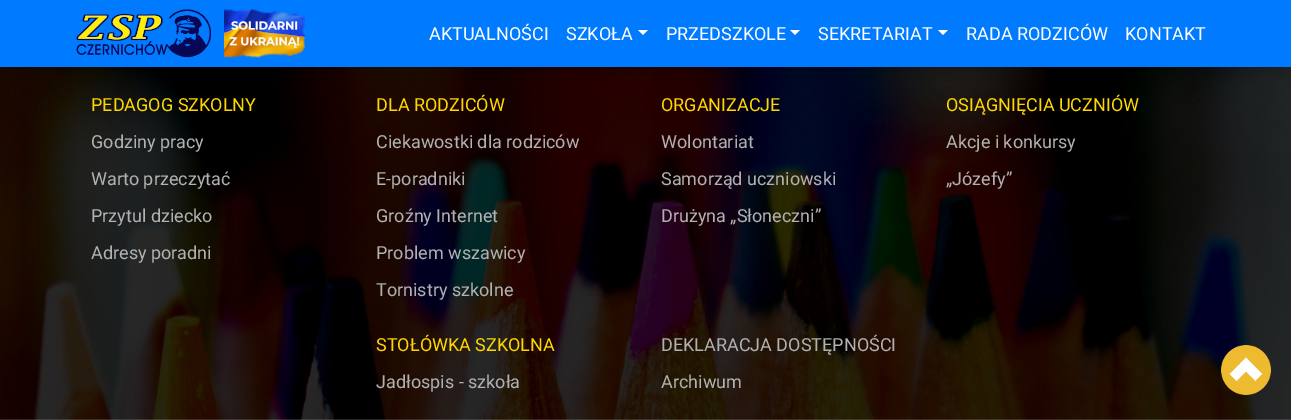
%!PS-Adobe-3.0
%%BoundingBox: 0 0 1291 420
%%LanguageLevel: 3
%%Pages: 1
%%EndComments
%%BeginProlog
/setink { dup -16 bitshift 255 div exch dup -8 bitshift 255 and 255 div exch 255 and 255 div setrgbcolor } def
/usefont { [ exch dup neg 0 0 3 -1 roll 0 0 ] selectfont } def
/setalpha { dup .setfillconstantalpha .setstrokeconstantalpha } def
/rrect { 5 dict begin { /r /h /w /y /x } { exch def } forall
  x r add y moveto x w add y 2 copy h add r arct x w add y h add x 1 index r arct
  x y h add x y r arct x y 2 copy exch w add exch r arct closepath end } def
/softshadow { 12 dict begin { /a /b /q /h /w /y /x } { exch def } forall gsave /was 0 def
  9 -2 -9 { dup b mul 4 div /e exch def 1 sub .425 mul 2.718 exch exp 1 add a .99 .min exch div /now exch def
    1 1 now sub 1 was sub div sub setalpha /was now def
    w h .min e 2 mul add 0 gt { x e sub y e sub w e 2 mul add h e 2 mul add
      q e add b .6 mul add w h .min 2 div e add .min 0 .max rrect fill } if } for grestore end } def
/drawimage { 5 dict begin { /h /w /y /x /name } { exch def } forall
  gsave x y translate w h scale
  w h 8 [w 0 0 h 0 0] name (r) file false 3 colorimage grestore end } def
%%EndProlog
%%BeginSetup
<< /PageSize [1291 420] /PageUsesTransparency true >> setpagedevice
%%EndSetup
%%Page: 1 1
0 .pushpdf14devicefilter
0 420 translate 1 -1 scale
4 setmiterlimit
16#FFFFFF setink
0 0 1291 420 rectfill
(img3.raw) 0 67 1291 353 drawimage
16#000000 setink
0 9 1291 67 0 9 0.15 softshadow
16#007BFF setink
0 0 1291 67 rectfill
(img1.raw) 76 9 135 49 drawimage
(img2.raw) 224 9 81 49 drawimage
/Roboto-Regular 18 usefont
16#FFFFFF setink
429 40 moveto (AKTUALNOŚCI) show
566 40 moveto (SZKOŁA) show
638 30 moveto 648 30 lineto 643 35 lineto closepath fill
666 40 moveto (PRZEDSZKOLE) show
790 30 moveto 800 30 lineto 795 35 lineto closepath fill
818 40 moveto (SEKRETARIAT) show
938 30 moveto 948 30 lineto 943 35 lineto closepath fill
966 40 moveto (RADA RODZICÓW) show
1125 40 moveto (KONTAKT) show
16#FFD700 setink
91 111 moveto (PEDAGOG SZKOLNY) show
16#B1B1B1 setink
[
    [(Godziny pracy) 91 148]
    [(Warto przeczytać) 91 185]
    [(Przytul dziecko) 91 222]
    [(Adresy poradni) 91 259]
] { aload pop moveto show } forall
16#FFD700 setink
376 111 moveto (DLA RODZICÓW) show
16#B1B1B1 setink
[
    [(Ciekawostki dla rodziców) 376 148]
    [(E-poradniki) 376 185]
    [(Groźny Internet) 376 222]
    [(Problem wszawicy) 376 259]
    [(Tornistry szkolne) 376 296]
] { aload pop moveto show } forall
16#FFD700 setink
661 111 moveto (ORGANIZACJE) show
16#B1B1B1 setink
[
    [(Wolontariat) 661 148]
    [(Samorząd uczniowski) 661 185]
    [(Drużyna „Słoneczni”) 661 222]
] { aload pop moveto show } forall
16#FFD700 setink
946 111 moveto (OSIĄGNIĘCIA UCZNIÓW) show
16#B1B1B1 setink
946 148 moveto (Akcje i konkursy) show
946 185 moveto („Józefy”) show
16#FFD700 setink
376 351 moveto (STOŁÓWKA SZKOLNA) show
16#B1B1B1 setink
[
    [(Jadłospis - szkoła) 376 388]
    [(DEKLARACJA DOSTĘPNOŚCI) 661 351]
    [(Archiwum) 661 388]
] { aload pop moveto show } forall
(img4.raw) 1221 345 50 50 drawimage
.poppdf14devicefilter showpage
%%EOF
